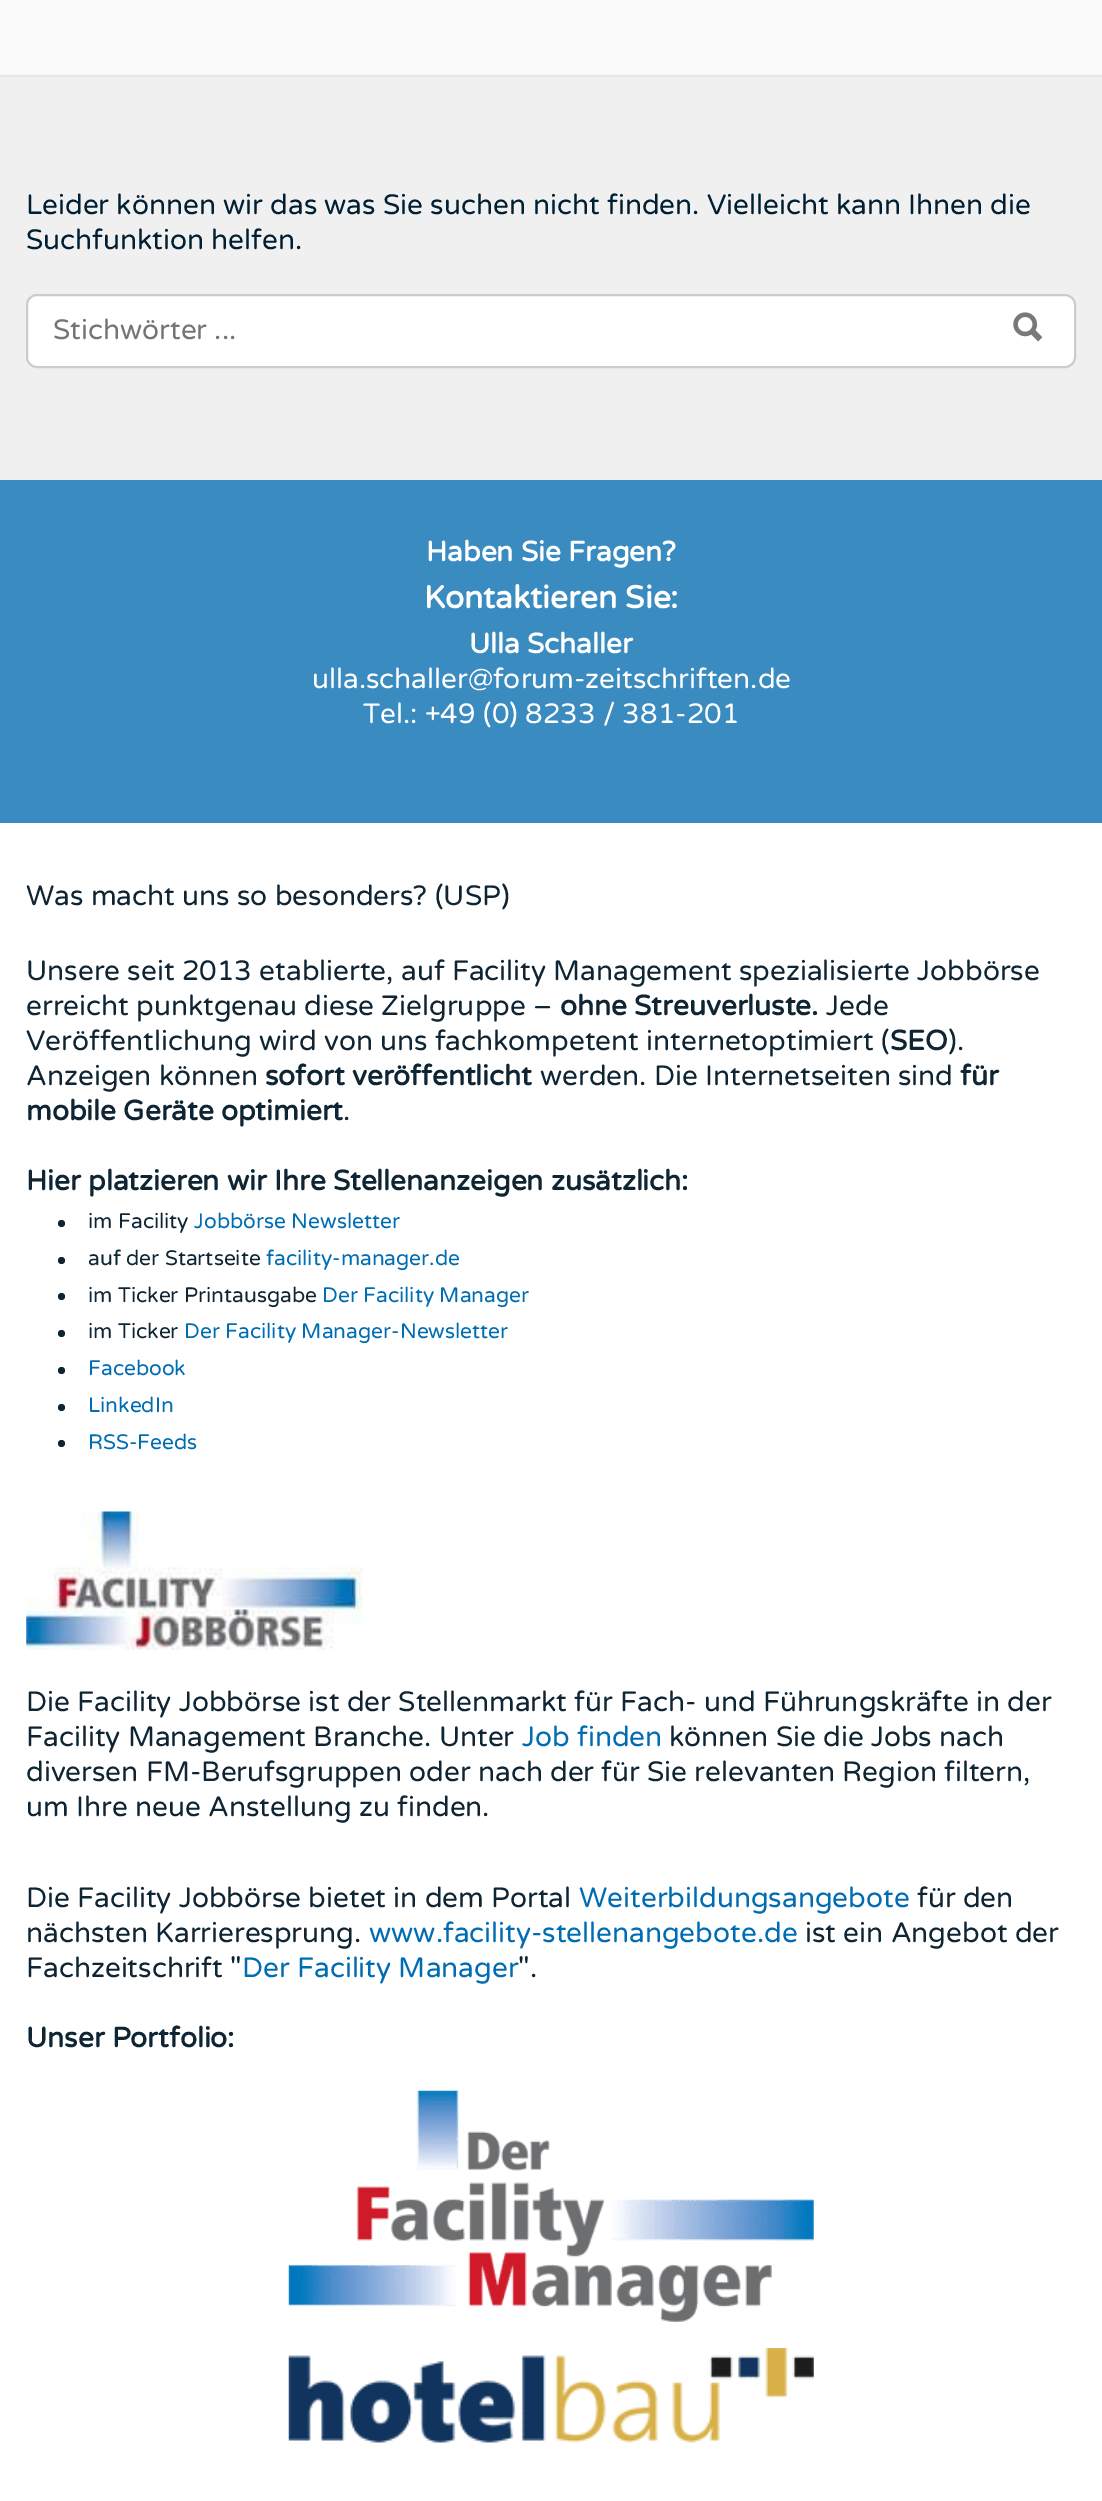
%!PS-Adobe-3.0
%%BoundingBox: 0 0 1102 2501
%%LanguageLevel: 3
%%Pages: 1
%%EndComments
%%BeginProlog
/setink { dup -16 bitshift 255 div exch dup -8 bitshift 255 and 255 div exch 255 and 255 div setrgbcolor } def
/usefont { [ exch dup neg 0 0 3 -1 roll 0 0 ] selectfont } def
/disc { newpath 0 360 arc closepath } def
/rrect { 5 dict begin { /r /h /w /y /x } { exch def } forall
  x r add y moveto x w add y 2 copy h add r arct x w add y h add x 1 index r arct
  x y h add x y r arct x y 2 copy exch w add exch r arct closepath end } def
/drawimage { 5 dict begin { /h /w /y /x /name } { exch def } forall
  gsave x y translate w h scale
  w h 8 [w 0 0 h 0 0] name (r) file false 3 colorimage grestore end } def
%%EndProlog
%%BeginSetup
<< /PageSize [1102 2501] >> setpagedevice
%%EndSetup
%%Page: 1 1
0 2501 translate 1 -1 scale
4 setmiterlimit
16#F0F0F0 setink
0 0 1102 2501 rectfill
16#FAFAFA setink
0 0 1102 75 rectfill
16#E7E7E7 setink
0 75 1102 2 rectfill
/VarelaRound-Regular 28 usefont
16#001F33 setink
26 214 moveto (Leider können wir das was Sie suchen nicht finden. Vielleicht kann Ihnen die) show
26 249 moveto (Suchfunktion helfen.) show
16#FFFFFF setink
27 295 1048 72 10 rrect gsave fill grestore
16#CCCCCC setink
2 setlinewidth
stroke
16#757575 setink
53 339 moveto (Stichwörter ...) show
(img1.raw) 1013 312 30 30 drawimage
16#398BC0 setink
0 480 1102 343 rectfill
/VarelaRound-Bold 28 usefont
16#FFFFFF setink
426 561 moveto (Haben Sie Fragen?) show
/VarelaRound-Bold 31.5 usefont
424 608 moveto (Kontaktieren Sie:) show
/VarelaRound-Bold 28 usefont
469 653 moveto (Ulla Schaller) show
/VarelaRound-Regular 28 usefont
312 688 moveto (ulla.schaller@forum-zeitschriften.de) show
363 723 moveto (Tel.: +49 \(0\) 8233 / 381-201) show
0 823 1102 1678 rectfill
16#0F2533 setink
[
    [(Was macht uns so besonders? \(USP\)) 26 905]
    [(Unsere seit 2013 etablierte, auf Facility Management spezialisierte Jobbörse) 26 980]
    [(erreicht punktgenau diese Zielgruppe –) 26 1015]
] { aload pop moveto show } forall
/VarelaRound-Bold 28 usefont
560 1015 moveto (ohne Streuverluste.) show
/VarelaRound-Regular 28 usefont
826 1015 moveto (Jede) show
26 1050 moveto (Veröffentlichung wird von uns fachkompetent internetoptimiert \() show
/VarelaRound-Bold 28 usefont
890 1050 moveto (SEO) show
/VarelaRound-Regular 28 usefont
948 1050 moveto (\).) show
26 1085 moveto (Anzeigen können) show
/VarelaRound-Bold 28 usefont
265 1085 moveto (sofort veröffentlicht) show
/VarelaRound-Regular 28 usefont
540 1085 moveto (werden. Die Internetseiten sind) show
/VarelaRound-Bold 28 usefont
960 1085 moveto (für) show
26 1120 moveto (mobile Geräte optimiert) show
/VarelaRound-Regular 28 usefont
343 1120 moveto (.) show
/VarelaRound-Bold 28 usefont
26 1190 moveto (Hier platzieren wir Ihre Stellenanzeigen zusätzlich:) show
61.5 1223.5 3.5 disc fill
/VarelaRound-Regular 21 usefont
88 1228 moveto (im Facility) show
16#006DB3 setink
194 1228 moveto (Jobbörse Newsletter) show
16#0F2533 setink
61.5 1260.5 3.5 disc fill
88 1265 moveto (auf der Startseite) show
16#006DB3 setink
266 1265 moveto (facility-manager.de) show
16#0F2533 setink
61.5 1296.5 3.5 disc fill
88 1302 moveto (im Ticker Printausgabe) show
16#006DB3 setink
322 1302 moveto (Der Facility Manager) show
16#0F2533 setink
61.5 1333.5 3.5 disc fill
88 1338 moveto (im Ticker) show
16#006DB3 setink
184 1338 moveto (Der Facility Manager-Newsletter) show
16#0F2533 setink
61.5 1370.5 3.5 disc fill
16#006DB3 setink
88 1375 moveto (Facebook) show
16#0F2533 setink
61.5 1407.5 3.5 disc fill
16#006DB3 setink
88 1412 moveto (LinkedIn) show
16#0F2533 setink
61.5 1443.5 3.5 disc fill
16#006DB3 setink
88 1449 moveto (RSS-Feeds) show
(img2.raw) 26 1511 338 139 drawimage
/VarelaRound-Regular 28 usefont
16#0F2533 setink
26 1711 moveto (Die Facility Jobbörse ist der Stellenmarkt für Fach- und Führungskräfte in der) show
26 1746 moveto (Facility Management Branche. Unter) show
16#006DB3 setink
522 1746 moveto (Job finden) show
16#0F2533 setink
[
    [(können Sie die Jobs nach) 669 1746]
    [(diversen FM-Berufsgruppen oder nach der für Sie relevanten Region filtern,) 26 1781]
    [(um Ihre neue Anstellung zu finden.) 26 1816]
    [(Die Facility Jobbörse bietet in dem Portal) 26 1907]
] { aload pop moveto show } forall
16#006DB3 setink
579 1907 moveto (Weiterbildungsangebote) show
16#0F2533 setink
917 1907 moveto (für den) show
26 1942 moveto (nächsten Karrieresprung.) show
16#006DB3 setink
369 1942 moveto (www.facility-stellenangebote.de) show
16#0F2533 setink
805 1942 moveto (ist ein Angebot der) show
26 1977 moveto (Fachzeitschrift ") show
16#006DB3 setink
242 1977 moveto (Der Facility Manager) show
16#0F2533 setink
518 1977 moveto (".) show
/VarelaRound-Bold 28 usefont
26 2047 moveto (Unser Portfolio:) show
(img3.raw) 288 2090 526 232 drawimage
(img4.raw) 288 2348 526 95 drawimage
showpage
%%EOF
